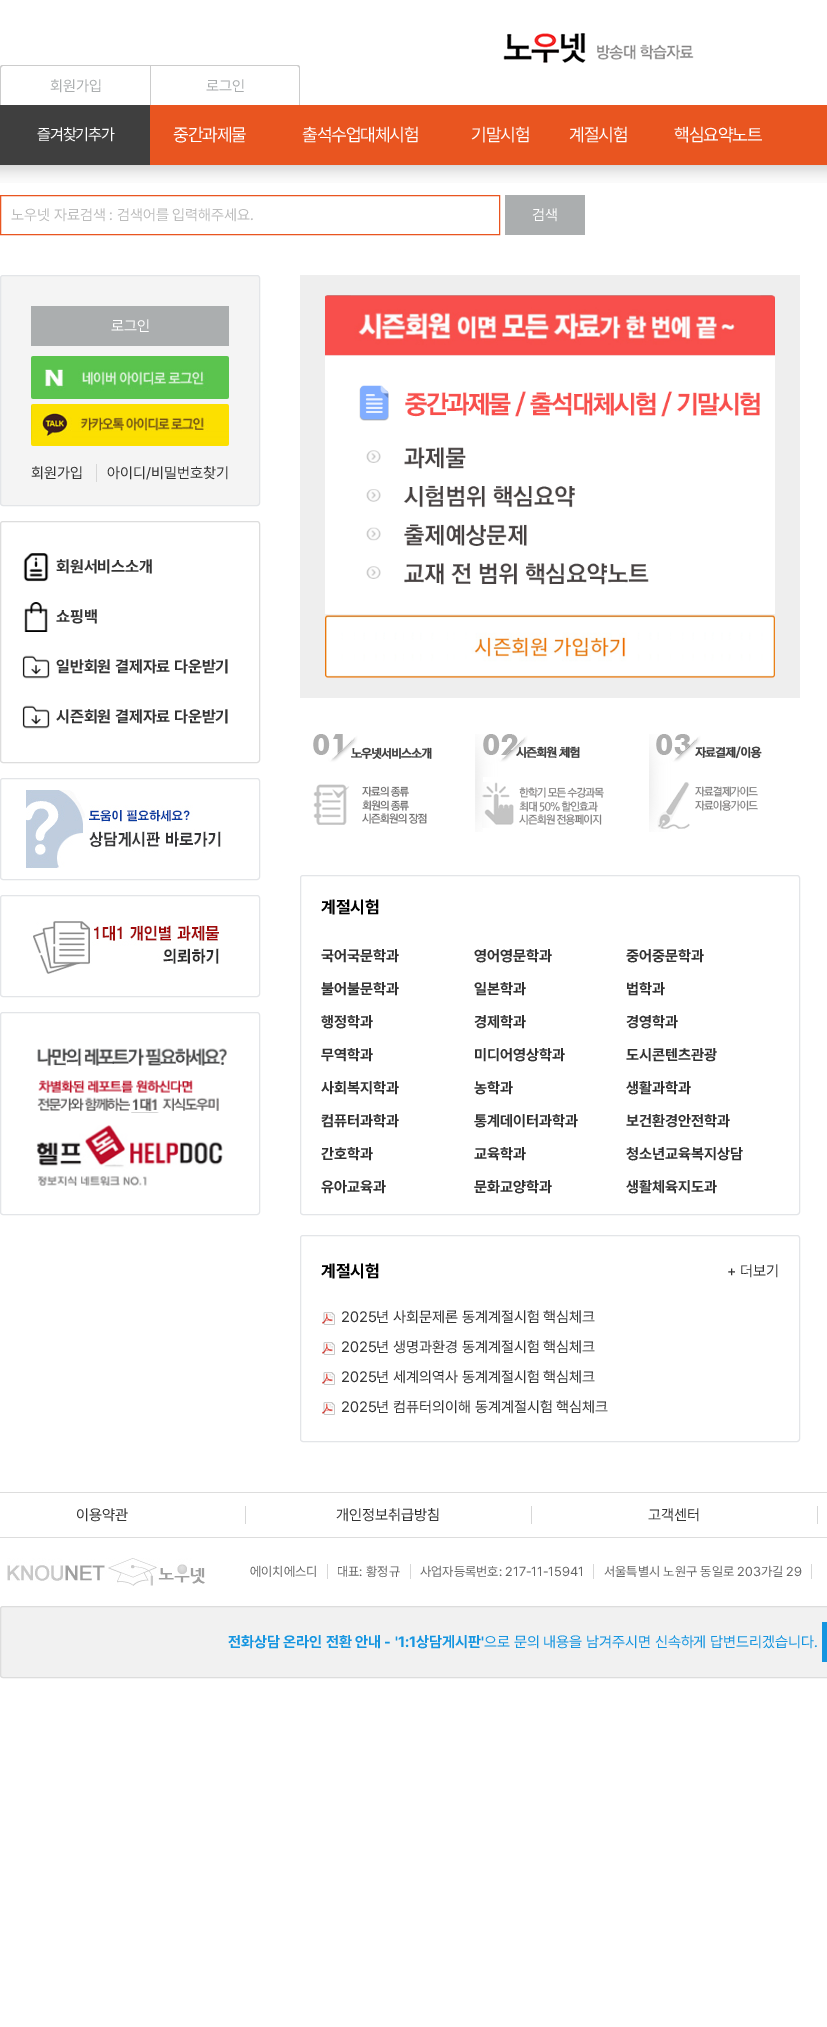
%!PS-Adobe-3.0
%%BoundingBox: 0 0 827 2027
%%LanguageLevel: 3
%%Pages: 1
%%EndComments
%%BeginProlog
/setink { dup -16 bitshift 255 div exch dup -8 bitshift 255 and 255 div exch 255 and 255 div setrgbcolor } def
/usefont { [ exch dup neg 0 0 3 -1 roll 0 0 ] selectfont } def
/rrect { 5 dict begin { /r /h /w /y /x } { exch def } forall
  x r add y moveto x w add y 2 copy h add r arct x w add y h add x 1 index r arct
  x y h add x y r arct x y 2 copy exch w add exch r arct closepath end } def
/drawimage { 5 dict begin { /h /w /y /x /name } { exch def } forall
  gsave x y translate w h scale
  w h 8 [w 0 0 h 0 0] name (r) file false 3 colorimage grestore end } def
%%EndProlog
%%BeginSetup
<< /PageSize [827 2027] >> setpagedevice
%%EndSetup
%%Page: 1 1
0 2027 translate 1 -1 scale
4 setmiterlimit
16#FFFFFF setink
0 0 827 2027 rectfill
(img1.raw) 503 33 191 30 drawimage
16#CCCCCC setink
3 65 moveto 150 65 lineto 150 105 lineto 0 105 lineto 0 68 lineto 0 66 1 65 3 65 curveto closepath 3 66 moveto 150 66 lineto 150 105 lineto 1 105 lineto 1 68 lineto 1 67 2 66 3 66 curveto closepath eofill
/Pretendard-Regular 15 usefont
16#ABAEAF setink
50 91 moveto (회원가입) show
16#CCCCCC setink
150 65 moveto 297 65 lineto 299 65 300 66 300 68 curveto 300 105 lineto 150 105 lineto closepath 151 66 moveto 297 66 lineto 298 66 299 67 299 68 curveto 299 105 lineto 151 105 lineto closepath eofill
16#ABAEAF setink
206 91 moveto (로그인) show
16#3F3F3F setink
0 105 150 60 rectfill
/Pretendard-Regular 16 usefont
16#FFFFFF setink
37 140 moveto -1 0 (즐겨찾기추가) ashow
16#E95520 setink
150 105 677 60 rectfill
/Pretendard-Regular 18 usefont
16#FFFFFF setink
173 141 moveto -1 0 (중간과제물) ashow
302 141 moveto -1 0 (출석수업대체시험) ashow
471 141 moveto -1 0 (기말시험) ashow
569 141 moveto -1 0 (계절시험) ashow
674 141 moveto -1 0 (핵심요약노트) ashow
(img2.raw) 0 165 827 18 drawimage
16#E95520 setink
0.5 195.5 499 39 rectstroke
/Pretendard-Regular 15 usefont
16#BCBCBC setink
11 220 moveto (노우넷 자료검색 : 검색어를 입력해주세요.) show
16#ABAEAF setink
505 195 80 40 rectfill
16#FFFFFF setink
532 220 moveto (검색) show
16#F4F4F4 setink
0.5 275.5 259 230 2.5 rrect gsave fill grestore
16#E3E5E8 setink
stroke
16#ABAEAF setink
31 306 198 40 rectfill
16#FFFFFF setink
111 331 moveto (로그인) show
(img3.raw) 31 356 198 43 drawimage
(img4.raw) 31 404 198 42 drawimage
16#333333 setink
31 478 moveto (회원가입) show
16#D7D7D7 setink
96 464 1 18 rectfill
16#333333 setink
107 478 moveto (아이디/비밀번호찾기) show
16#DDDDDD setink
0.5 521.5 259 241 2.5 rrect stroke
(img5.raw) 23 553 26 29 drawimage
/Pretendard-Bold 16 usefont
16#333333 setink
56 572 moveto (회원서비스소개) show
(img6.raw) 24 602 24 30 drawimage
56 622 moveto (쇼핑백) show
(img7.raw) 22 655 28 24 drawimage
56 672 moveto (일반회원 결제자료 다운받기) show
(img7.raw) 22 705 28 24 drawimage
56 722 moveto (시즌회원 결제자료 다운받기) show
16#E3E5E8 setink
0.5 778.5 259 101 2.5 rrect stroke
(img8.raw) 26 790 195 78 drawimage
0.5 895.5 259 101 2.5 rrect stroke
(img9.raw) 33 921 186 53 drawimage
0.5 1012.5 259 202 2.5 rrect stroke
(img10.raw) 36 1048 191 138 drawimage
16#EEEEEE setink
300 275 500 423 rectfill
(img11.raw) 325 295 450 383 drawimage
(img12.raw) 313 734 119 91 drawimage
(img13.raw) 475 734 129 98 drawimage
(img14.raw) 649 734 113 98 drawimage
16#E3E5E8 setink
300.5 875.5 499 339 2.5 rrect stroke
/Pretendard-Bold 17 usefont
16#000000 setink
321 913 moveto (계절시험) show
/Pretendard-Bold 15 usefont
16#333333 setink
[
    [(국어국문학과) 321 961]
    [(영어영문학과) 474 961]
    [(중어중문학과) 626 961]
    [(불어불문학과) 321 994]
    [(일본학과) 474 994]
    [(법학과) 626 994]
    [(행정학과) 321 1027]
    [(경제학과) 474 1027]
    [(경영학과) 626 1027]
    [(무역학과) 321 1060]
    [(미디어영상학과) 474 1060]
    [(도시콘텐츠관광) 626 1060]
    [(사회복지학과) 321 1093]
    [(농학과) 474 1093]
    [(생활과학과) 626 1093]
    [(컴퓨터과학과) 321 1126]
    [(통계데이터과학과) 474 1126]
    [(보건환경안전학과) 626 1126]
    [(간호학과) 321 1159]
    [(교육학과) 474 1159]
    [(청소년교육복지상담) 626 1159]
    [(유아교육과) 321 1192]
    [(문화교양학과) 474 1192]
    [(생활체육지도과) 626 1192]
] { aload pop moveto show } forall
16#E3E5E8 setink
300.5 1235.5 499 206 2.5 rrect stroke
/Pretendard-Bold 17 usefont
16#000000 setink
321 1277 moveto (계절시험) show
/Pretendard-Regular 15 usefont
16#333333 setink
727 1276 moveto (+ 더보기) show
(img15.raw) 322 1312 13 13 drawimage
341 1322 moveto (2025년 사회문제론 동계계절시험 핵심체크) show
(img15.raw) 322 1342 13 13 drawimage
341 1352 moveto (2025년 생명과환경 동계계절시험 핵심체크) show
(img15.raw) 322 1372 13 13 drawimage
341 1382 moveto (2025년 세계의역사 동계계절시험 핵심체크) show
(img15.raw) 322 1402 13 13 drawimage
341 1412 moveto (2025년 컴퓨터의이해 동계계절시험 핵심체크) show
16#DDDDDD setink
0 1492 827 1 rectfill
0 1537 827 1 rectfill
16#333333 setink
76 1520 moveto (이용약관) show
16#D7D7D7 setink
245 1506 1 18 rectfill
16#333333 setink
336 1520 moveto (개인정보취급방침) show
16#D7D7D7 setink
531 1506 1 18 rectfill
16#333333 setink
648 1520 moveto (고객센터) show
16#D7D7D7 setink
817 1506 1 18 rectfill
(img16.raw) 7 1558 198 28 drawimage
/Pretendard-Regular 13 usefont
16#666666 setink
250 1576 moveto (에이치에스디) show
16#D7D7D7 setink
327 1564 1 15 rectfill
16#666666 setink
337 1576 moveto (대표: 황정규) show
16#D7D7D7 setink
410 1564 1 15 rectfill
16#666666 setink
420 1576 moveto (사업자등록번호: 217-11-15941) show
16#D7D7D7 setink
593 1564 1 15 rectfill
16#666666 setink
604 1576 moveto (서울특별시 노원구 동일로 203가길 29) show
16#D7D7D7 setink
811 1564 1 15 rectfill
16#F1F1F1 setink
3 1606 moveto 827 1606 lineto 827 1678 lineto 3 1678 lineto 1.5 1678 0 1676.5 0 1675 curveto 0 1609 lineto 0 1607.5 1.5 1606 3 1606 curveto closepath fill
16#DDDDDD setink
0.5 1606.5 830 71 2.5 rrect stroke
/Pretendard-Bold 15 usefont
16#1595E0 setink
228 1647 moveto (전화상담 온라인 전환 안내 - '1:1상담게시판') show
/Pretendard-Regular 15 usefont
484 1647 moveto (으로 문의 내용을 남겨주시면 신속하게 답변드리겠습니다.) show
822 1622 5 40 rectfill
showpage
%%EOF
